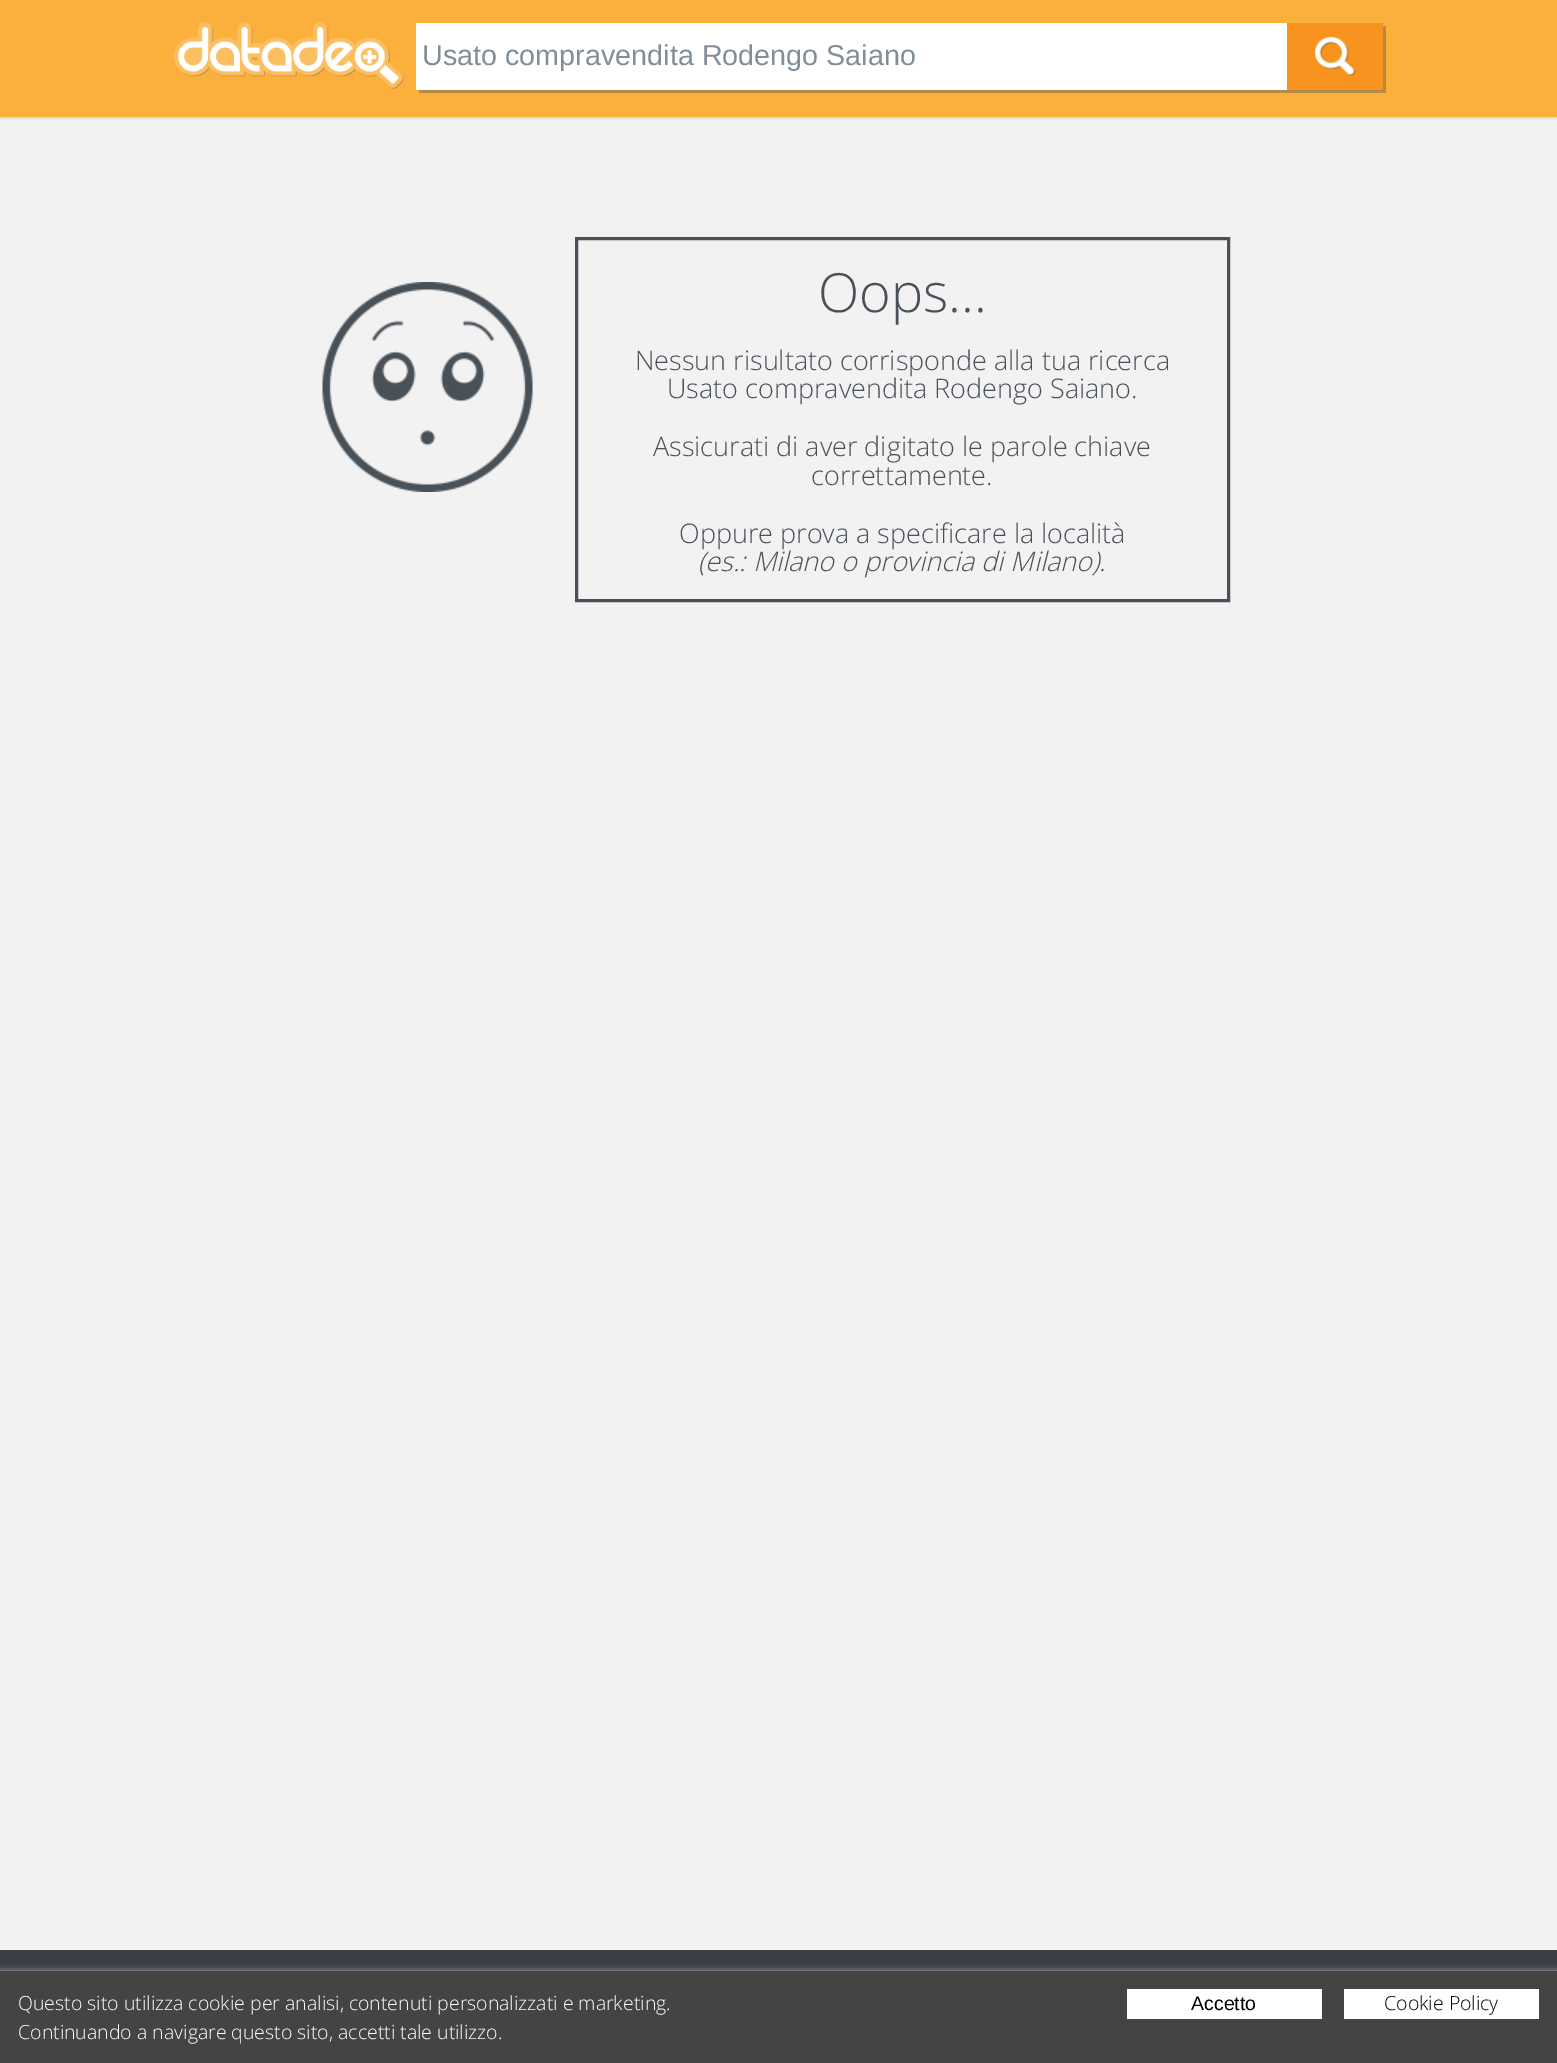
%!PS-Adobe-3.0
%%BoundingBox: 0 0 1557 2063
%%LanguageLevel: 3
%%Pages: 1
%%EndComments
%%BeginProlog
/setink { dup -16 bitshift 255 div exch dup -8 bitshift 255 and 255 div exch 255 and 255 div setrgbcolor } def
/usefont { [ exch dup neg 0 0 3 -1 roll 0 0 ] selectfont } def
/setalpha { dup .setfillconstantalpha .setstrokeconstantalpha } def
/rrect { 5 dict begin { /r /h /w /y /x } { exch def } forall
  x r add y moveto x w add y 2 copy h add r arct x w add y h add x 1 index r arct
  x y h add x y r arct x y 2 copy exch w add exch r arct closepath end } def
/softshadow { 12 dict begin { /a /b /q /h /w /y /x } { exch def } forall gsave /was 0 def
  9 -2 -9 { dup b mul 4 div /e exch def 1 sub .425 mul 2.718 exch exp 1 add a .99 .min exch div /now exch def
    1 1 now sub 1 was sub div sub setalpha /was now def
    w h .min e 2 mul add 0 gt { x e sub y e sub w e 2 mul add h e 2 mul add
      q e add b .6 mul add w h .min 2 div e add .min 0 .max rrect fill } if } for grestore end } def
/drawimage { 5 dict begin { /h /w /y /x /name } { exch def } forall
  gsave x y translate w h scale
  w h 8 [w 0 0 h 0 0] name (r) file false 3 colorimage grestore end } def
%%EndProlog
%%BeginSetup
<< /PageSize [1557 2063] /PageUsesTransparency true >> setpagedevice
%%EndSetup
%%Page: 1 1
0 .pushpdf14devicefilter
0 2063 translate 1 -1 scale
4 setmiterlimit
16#F2F2F2 setink
0 0 1557 2063 rectfill
16#000000 setink
0 2 1557 117 0 1 0.1 softshadow
16#FBB03B setink
0 0 1557 117 rectfill
(img1.raw) 174 22 230 67 drawimage
16#B48A47 setink
419 90 moveto 419 93 lineto 1386 93 lineto 1386 26 lineto 1383 26 lineto 1383 90 lineto closepath fill
16#FFFFFF setink
416 23 871 67 rectfill
/LiberationSans-Regular 28.75 usefont
16#818E99 setink
422 65 moveto (Usato compravendita Rodengo Saiano) show
16#F7931E setink
1287 23 96 67 rectfill
(img2.raw) 1315 37 40 39 drawimage
(img3.raw) 322 282 211 210 drawimage
16#495059 setink
3 setlinewidth
576.5 238.5 652 362 rectstroke
/OpenSans-Light 54 usefont
818 312 moveto (Oops...) show
/OpenSans-Light 27 usefont
[
    [(Nessun risultato corrisponde alla tua ricerca) 635 370]
    [(Usato compravendita Rodengo Saiano.) 667 398]
    [(Assicurati di aver digitato le parole chiave) 653 456]
    [(correttamente.) 811 485]
    [(Oppure prova a specificare la località) 679 543]
] { aload pop moveto show } forall
/OpenSans-LightItalic 27 usefont
698 571 moveto (\(es.: Milano o provincia di Milano\).) show
16#3A4046 setink
0 1950 1557 21 rectfill
16#444444 setink
0 1971 1557 92 rectfill
gsave
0 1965 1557 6 rectclip
16#FFFFFF setink
0 1973 1557 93 0 4 1 softshadow
grestore
/OpenSans-Light 19.5 usefont
16#FFFFFF setink
18 2010 moveto (Questo sito utilizza cookie per analisi, contenuti personalizzati e marketing.) show
18 2039 moveto (Continuando a navigare questo sito, accetti tale utilizzo.) show
1127 1989 195 30 rectfill
/LiberationSans-Regular 19.5 usefont
16#000000 setink
1191 2010 moveto (Accetto) show
16#FFFFFF setink
1344 1989 195 30 rectfill
/OpenSans-Light 19.5 usefont
16#000000 setink
1384 2010 moveto (Cookie Policy) show
.poppdf14devicefilter showpage
%%EOF
